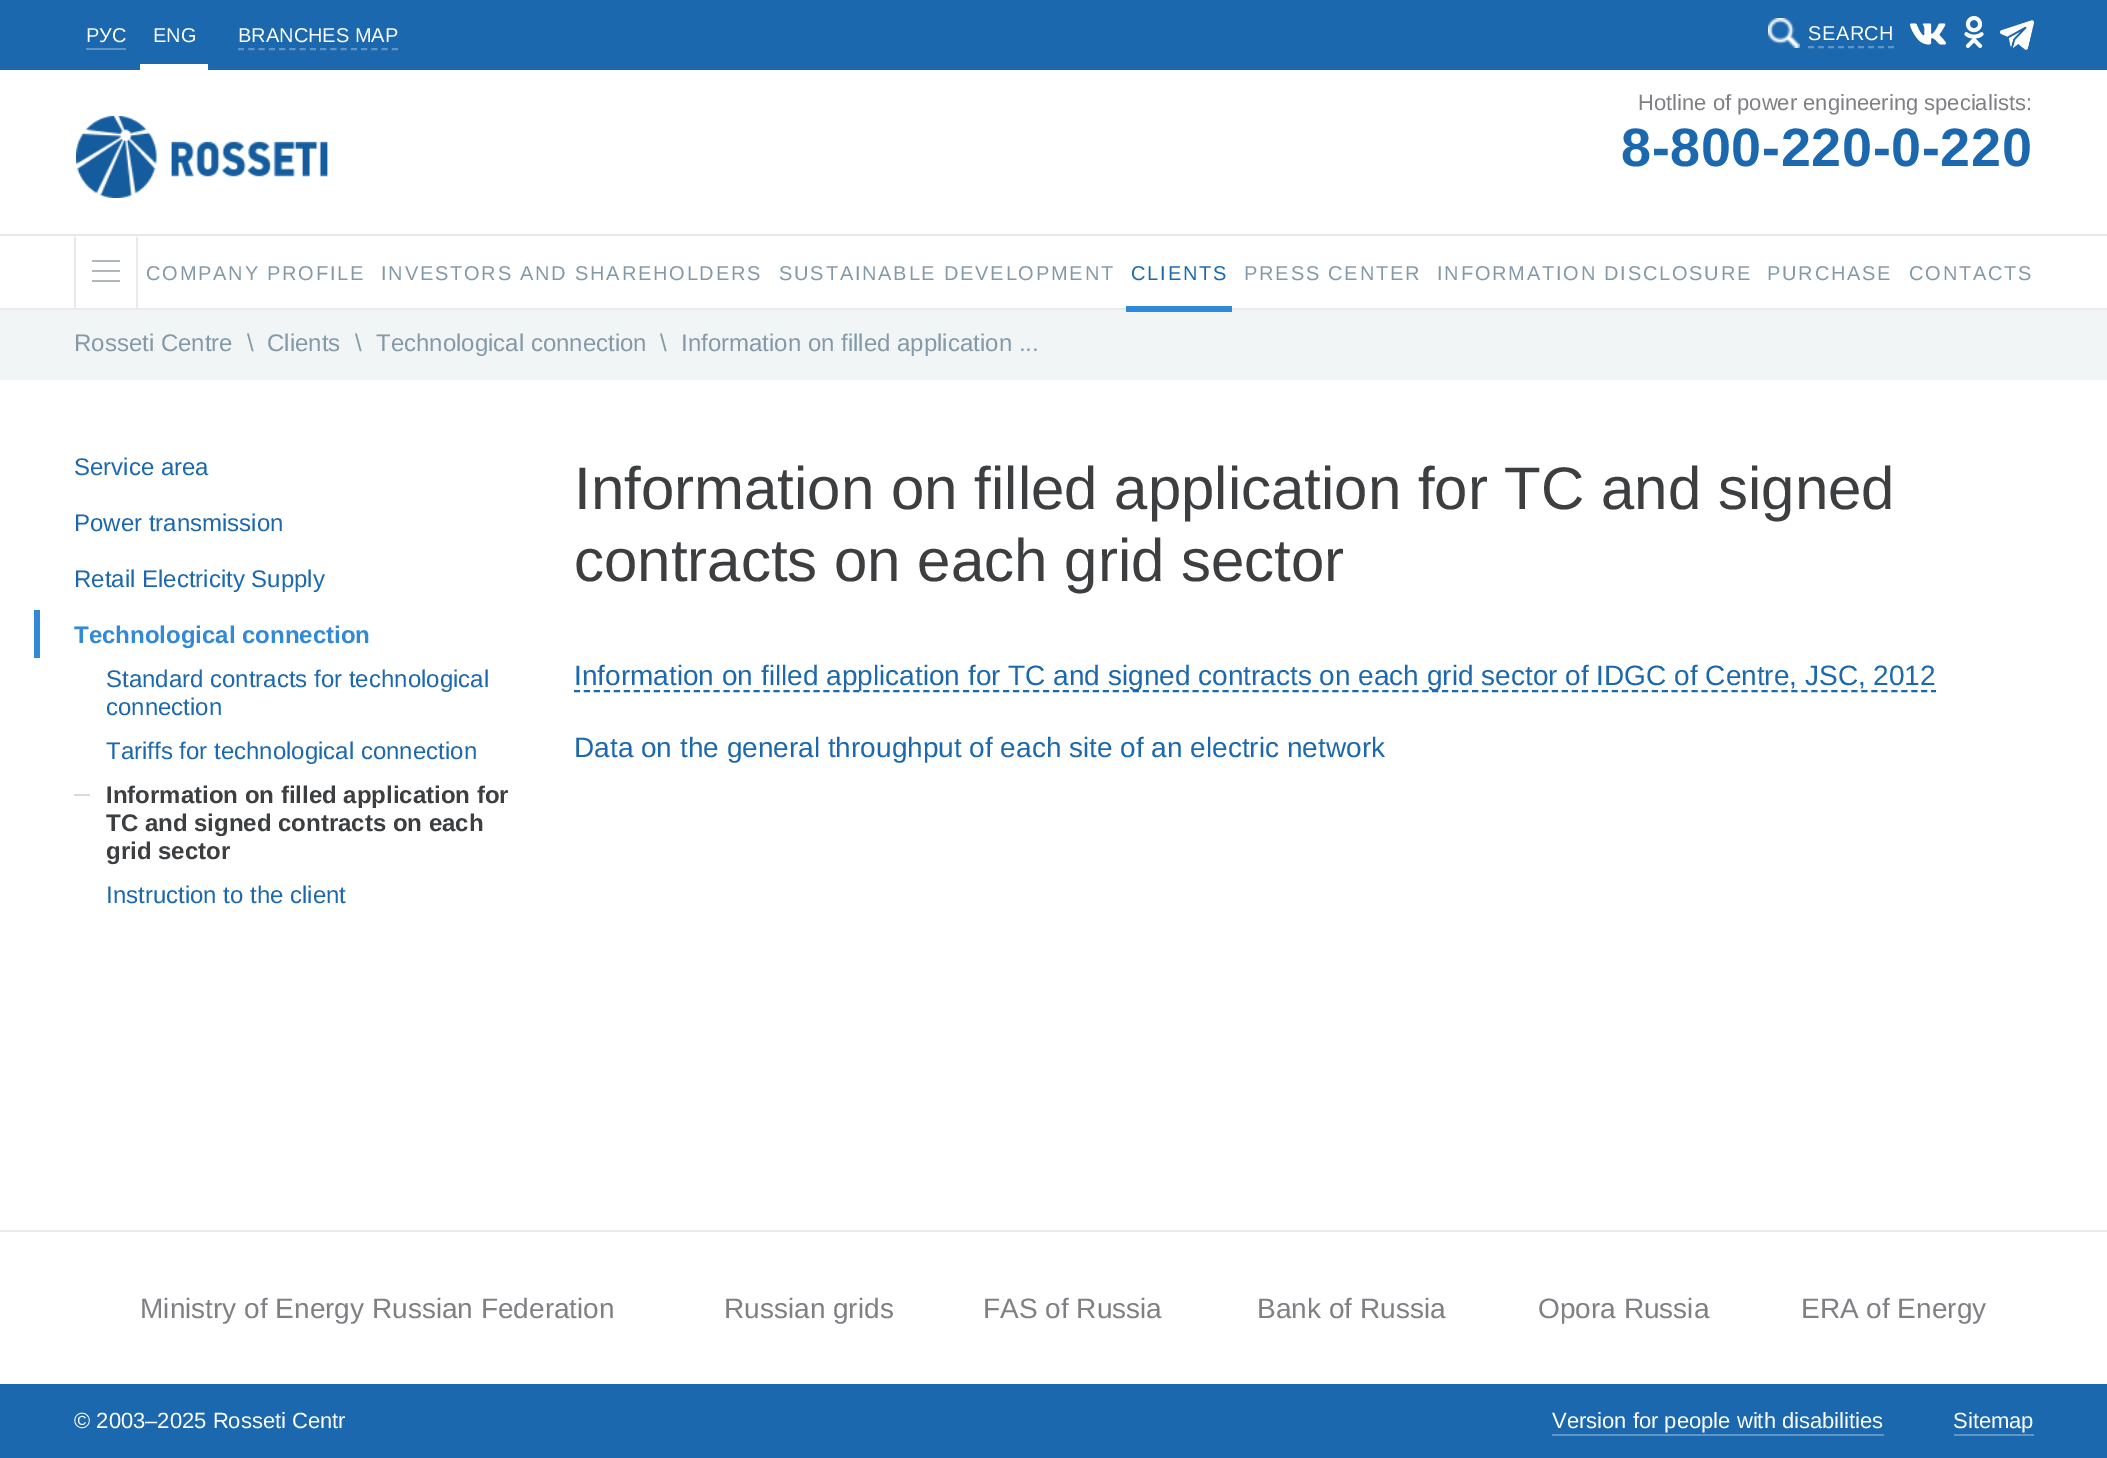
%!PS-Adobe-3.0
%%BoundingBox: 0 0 2107 1458
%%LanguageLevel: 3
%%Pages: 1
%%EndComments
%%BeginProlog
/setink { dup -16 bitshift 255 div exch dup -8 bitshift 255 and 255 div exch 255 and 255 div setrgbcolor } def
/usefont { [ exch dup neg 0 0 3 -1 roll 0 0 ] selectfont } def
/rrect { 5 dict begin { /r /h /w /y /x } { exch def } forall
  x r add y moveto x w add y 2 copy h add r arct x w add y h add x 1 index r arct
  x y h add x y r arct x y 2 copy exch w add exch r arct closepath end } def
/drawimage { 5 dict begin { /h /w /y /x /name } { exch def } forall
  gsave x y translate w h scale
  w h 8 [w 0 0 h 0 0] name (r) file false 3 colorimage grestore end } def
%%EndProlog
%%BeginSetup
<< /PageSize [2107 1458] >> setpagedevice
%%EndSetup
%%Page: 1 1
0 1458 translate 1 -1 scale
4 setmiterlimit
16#FFFFFF setink
0 0 2107 1458 rectfill
16#1B68AE setink
0 0 2107 70 rectfill
16#5F95C6 setink
86 48 40 2 rectfill
/LiberationSans-Regular 20 usefont
16#FFFFFF setink
86 42 moveto (РУС) show
140 64 68 6 rectfill
153 42 moveto (ENG) show
16#5F95C6 setink
2 setlinewidth
[6 4.26] 0 setdash
238 49 moveto 398 49 lineto stroke
16#FFFFFF setink
238 42 moveto (BRANCHES MAP) show
(img1.raw) 1768 18 32 30 drawimage
16#5F95C6 setink
[6 4] 0 setdash
1808 47 moveto 1894 47 lineto stroke
16#FFFFFF setink
1808 40 moveto 0.5 0 (SEARCH) ashow
(img2.raw) 1910 23 36 22 drawimage
(img3.raw) 1964 16 20 32 drawimage
(img4.raw) 2000 20 34 30 drawimage
16#E9E9E9 setink
0 234 2107 2 rectfill
(img5.raw) 76 116 252 82 drawimage
/LiberationSans-Regular 22 usefont
16#807F83 setink
1638 110 moveto (Hotline of power engineering specialists:) show
/LiberationSans-Bold 54 usefont
16#1B68AE setink
1621 166 moveto 0.6 0 (8-800-220-0-220) ashow
16#E9E9E9 setink
0 308 2107 2 rectfill
138 236 moveto 138 308 lineto 136 308 lineto 136 238 lineto closepath fill
74 308 moveto 74 236 lineto 76 238 lineto 76 308 lineto closepath fill
16#B0B7BC setink
92 270 28 2 1 rrect fill
92 260 28 2 1 rrect fill
92 280 28 2 1 rrect fill
/LiberationSans-Regular 20 usefont
16#8499A7 setink
146 280 moveto 1.8 0 (COMPANY PROFILE) ashow
381 280 moveto 1.8 0 (INVESTORS AND SHAREHOLDERS) ashow
779 280 moveto 1.8 0 (SUSTAINABLE DEVELOPMENT) ashow
16#1B68AE setink
1131 280 moveto 1.8 0 (CLIENTS) ashow
16#F2F5F6 setink
0 310 2107 70 rectfill
16#3189DA setink
1126 306 106 6 rectfill
16#8499A7 setink
1244 280 moveto 1.8 0 (PRESS CENTER) ashow
1437 280 moveto 1.8 0 (INFORMATION DISCLOSURE) ashow
1767 280 moveto 1.8 0 (PURCHASE) ashow
1909 280 moveto 1.8 0 (CONTACTS) ashow
/LiberationSans-Regular 24 usefont
[
    [(Rosseti Centre) 74 351]
    [(\\) 247 351]
    [(Clients) 267 351]
    [(\\) 355 351]
    [(Technological connection) 376 351]
    [(\\) 660 351]
    [(Information on filled application ...) 681 351]
] { aload pop moveto show } forall
16#1B68AE setink
[
    [(Service area) 74 475]
    [(Power transmission) 74 531]
    [(Retail Electricity Supply) 74 587]
] { aload pop moveto show } forall
16#3189DA setink
34 610 6 48 rectfill
/LiberationSans-Bold 24 usefont
74 643 moveto (Technological connection) show
/LiberationSans-Regular 24 usefont
16#1B68AE setink
[
    [(Standard contracts for technological) 106 687]
    [(connection) 106 715]
    [(Tariffs for technological connection) 106 759]
] { aload pop moveto show } forall
16#DADADC setink
74 794 16 2 rectfill
/LiberationSans-Bold 24 usefont
16#3C3E40 setink
[
    [(Information on filled application for) 106 803]
    [(TC and signed contracts on each) 106 831]
    [(grid sector) 106 859]
] { aload pop moveto show } forall
/LiberationSans-Regular 24 usefont
16#1B68AE setink
106 903 moveto (Instruction to the client) show
/LiberationSans-Regular 60 usefont
16#3C3E40 setink
574 509 moveto (Information on filled application for TC and signed) show
574 581 moveto (contracts on each grid sector) show
16#1B68AE setink
[6 3.98] 0 setdash
574 691 moveto 1936 691 lineto stroke
/LiberationSans-Regular 28 usefont
574 685 moveto (Information on filled application for TC and signed contracts on each grid sector of IDGC of Centre, JSC, 2012) show
574 757 moveto (Data on the general throughput of each site of an electric network) show
16#E9E9E9 setink
0 1230 2107 2 rectfill
16#807F83 setink
[
    [(Ministry of Energy Russian Federation) 140 1318]
    [(Russian grids) 724 1318]
    [(FAS of Russia) 983 1318]
    [(Bank of Russia) 1257 1318]
    [(Opora Russia) 1538 1318]
    [(ERA of Energy) 1801 1318]
] { aload pop moveto show } forall
16#1B68AE setink
0 1384 2107 74 rectfill
/LiberationSans-Regular 22 usefont
16#FFFFFF setink
74 1428 moveto (© 2003–2025 Rosseti Centr) show
16#6096C6 setink
1552 1434 332 2 rectfill
16#FFFFFF setink
1552 1428 moveto (Version for people with disabilities) show
16#6096C6 setink
1954 1434 80 2 rectfill
16#FFFFFF setink
1953 1428 moveto (Sitemap) show
showpage
%%EOF
